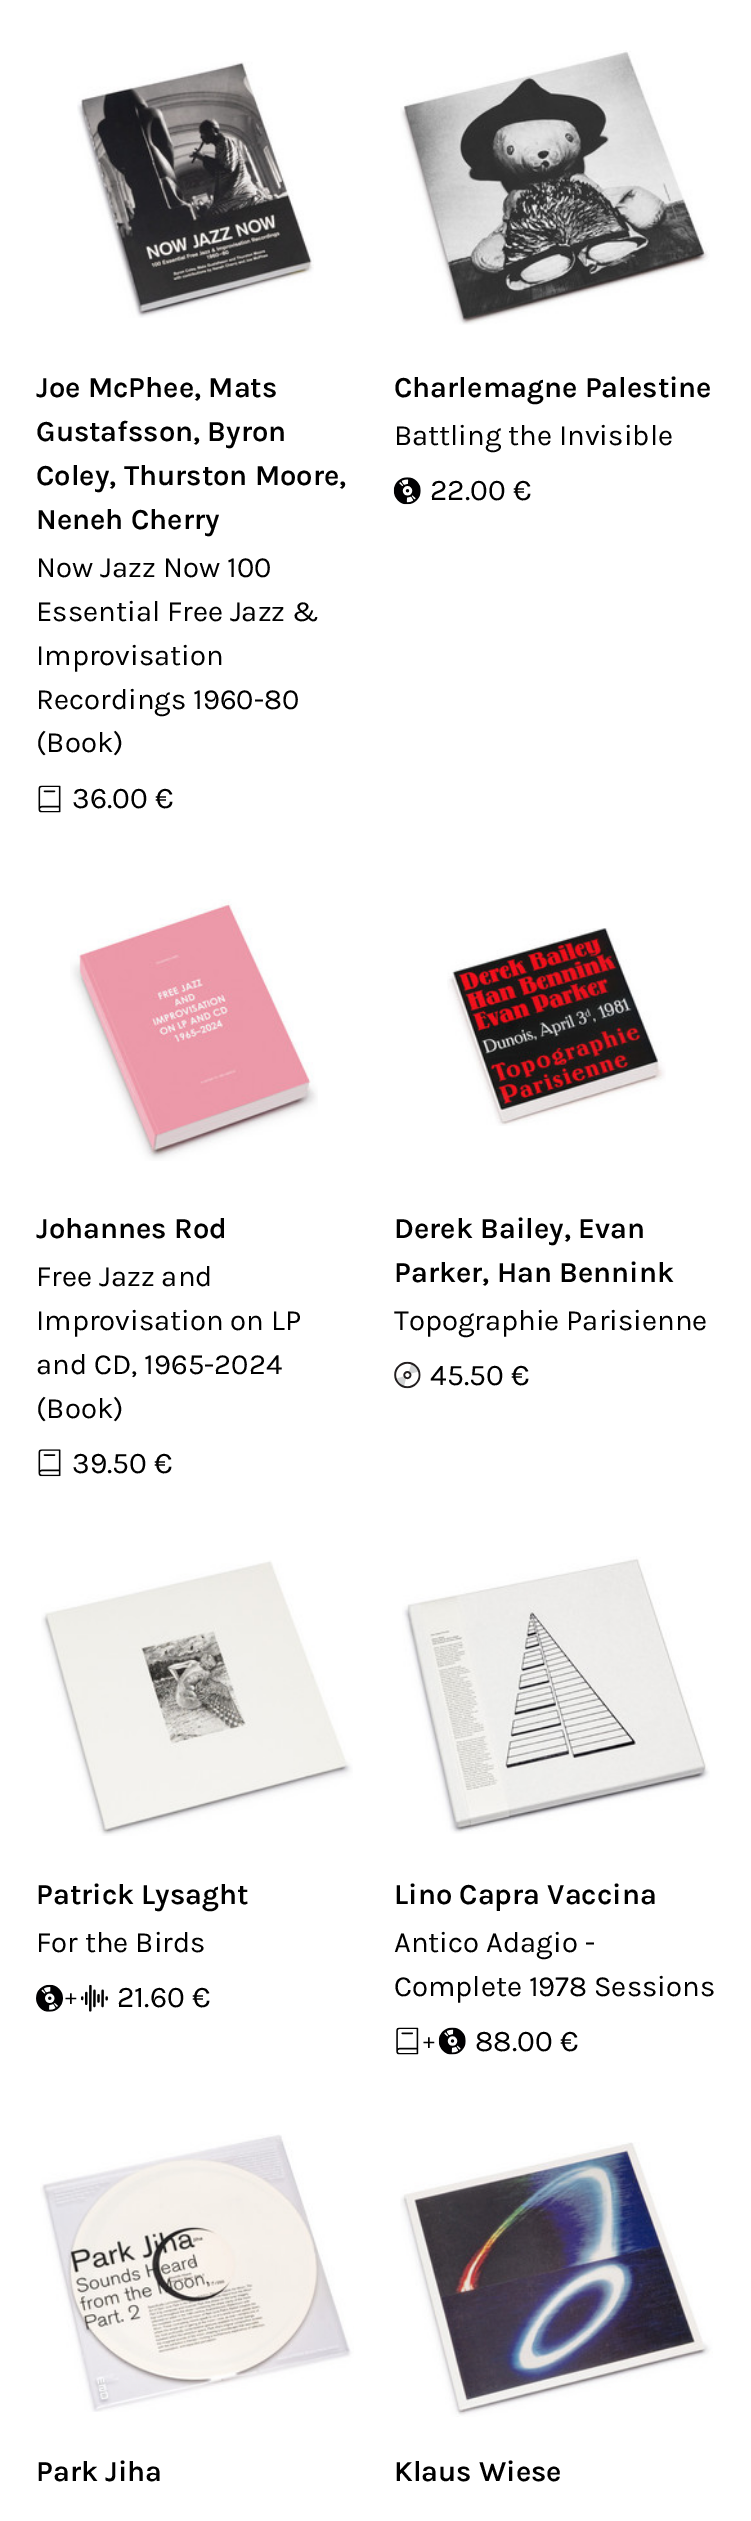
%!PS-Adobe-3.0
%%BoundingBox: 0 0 751 2521
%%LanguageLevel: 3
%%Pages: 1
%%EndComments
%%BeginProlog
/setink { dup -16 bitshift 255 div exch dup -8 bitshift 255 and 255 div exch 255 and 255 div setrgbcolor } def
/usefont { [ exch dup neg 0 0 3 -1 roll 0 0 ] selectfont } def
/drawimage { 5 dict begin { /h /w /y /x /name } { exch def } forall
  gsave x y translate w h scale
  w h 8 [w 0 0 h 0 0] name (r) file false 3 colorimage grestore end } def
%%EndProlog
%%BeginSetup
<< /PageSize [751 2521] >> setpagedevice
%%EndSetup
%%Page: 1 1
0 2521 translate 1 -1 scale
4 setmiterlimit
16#FFFFFF setink
0 0 751 2521 rectfill
(img1.raw) 77 61 237 257 drawimage
/Karla-SemiBold 29.25 usefont
16#000000 setink
[
    [(Joe McPhee, Mats) 36 397]
    [(Gustafsson, Byron) 36 441]
    [(Coley, Thurston Moore,) 36 485]
    [(Neneh Cherry) 36 529]
] { aload pop moveto show } forall
/Karla-Regular 29.25 usefont
[
    [(Now Jazz Now 100) 36 577]
    [(Essential Free Jazz &) 36 621]
    [(Improvisation) 36 665]
    [(Recordings 1960-80) 36 709]
    [(\(Book\)) 36 752]
] { aload pop moveto show } forall
(img2.raw) 38 785 23 28 drawimage
/Karla-Regular 30 usefont
72 808 moveto (36.00 €) show
(img3.raw) 400 50 310 275 drawimage
/Karla-SemiBold 29.25 usefont
394 397 moveto (Charlemagne Palestine) show
/Karla-Regular 29.25 usefont
394 445 moveto (Battling the Invisible) show
(img4.raw) 393 477 28 28 drawimage
/Karla-Regular 30 usefont
430 500 moveto (22.00 €) show
(img5.raw) 70 899 248 262 drawimage
/Karla-SemiBold 29.25 usefont
36 1238 moveto (Johannes Rod) show
/Karla-Regular 29.25 usefont
[
    [(Free Jazz and) 36 1286]
    [(Improvisation on LP) 36 1330]
    [(and CD, 1965-2024) 36 1374]
    [(\(Book\)) 36 1418]
] { aload pop moveto show } forall
(img6.raw) 38 1449 23 28 drawimage
/Karla-Regular 30 usefont
72 1473 moveto (39.50 €) show
(img7.raw) 447 928 219 198 drawimage
/Karla-SemiBold 29.25 usefont
394 1238 moveto (Derek Bailey, Evan) show
394 1282 moveto (Parker, Han Bennink) show
/Karla-Regular 29.25 usefont
394 1330 moveto (Topographie Parisienne) show
(img8.raw) 394 1361 27 28 drawimage
/Karla-Regular 30 usefont
430 1385 moveto (45.50 €) show
(img9.raw) 41 1560 312 276 drawimage
/Karla-SemiBold 29.25 usefont
36 1904 moveto (Patrick Lysaght) show
/Karla-Regular 29.25 usefont
36 1952 moveto (For the Birds) show
(img10.raw) 36 1984 27 28 drawimage
/Karla-Regular 22 usefont
65 2004 moveto (+) show
(img11.raw) 81 1984 27 28 drawimage
/Karla-Regular 30 usefont
117 2007 moveto (21.60 €) show
(img12.raw) 402 1556 308 278 drawimage
/Karla-SemiBold 29.25 usefont
394 1904 moveto (Lino Capra Vaccina) show
/Karla-Regular 29.25 usefont
394 1952 moveto (Antico Adagio -) show
394 1996 moveto (Complete 1978 Sessions) show
(img13.raw) 396 2027 23 28 drawimage
/Karla-Regular 22 usefont
423 2048 moveto (+) show
(img14.raw) 438 2027 28 28 drawimage
/Karla-Regular 30 usefont
475 2051 moveto (88.00 €) show
(img15.raw) 40 2134 314 278 drawimage
/Karla-SemiBold 29.25 usefont
36 2481 moveto (Park Jiha) show
(img16.raw) 400 2142 313 275 drawimage
394 2481 moveto (Klaus Wiese) show
showpage
%%EOF
